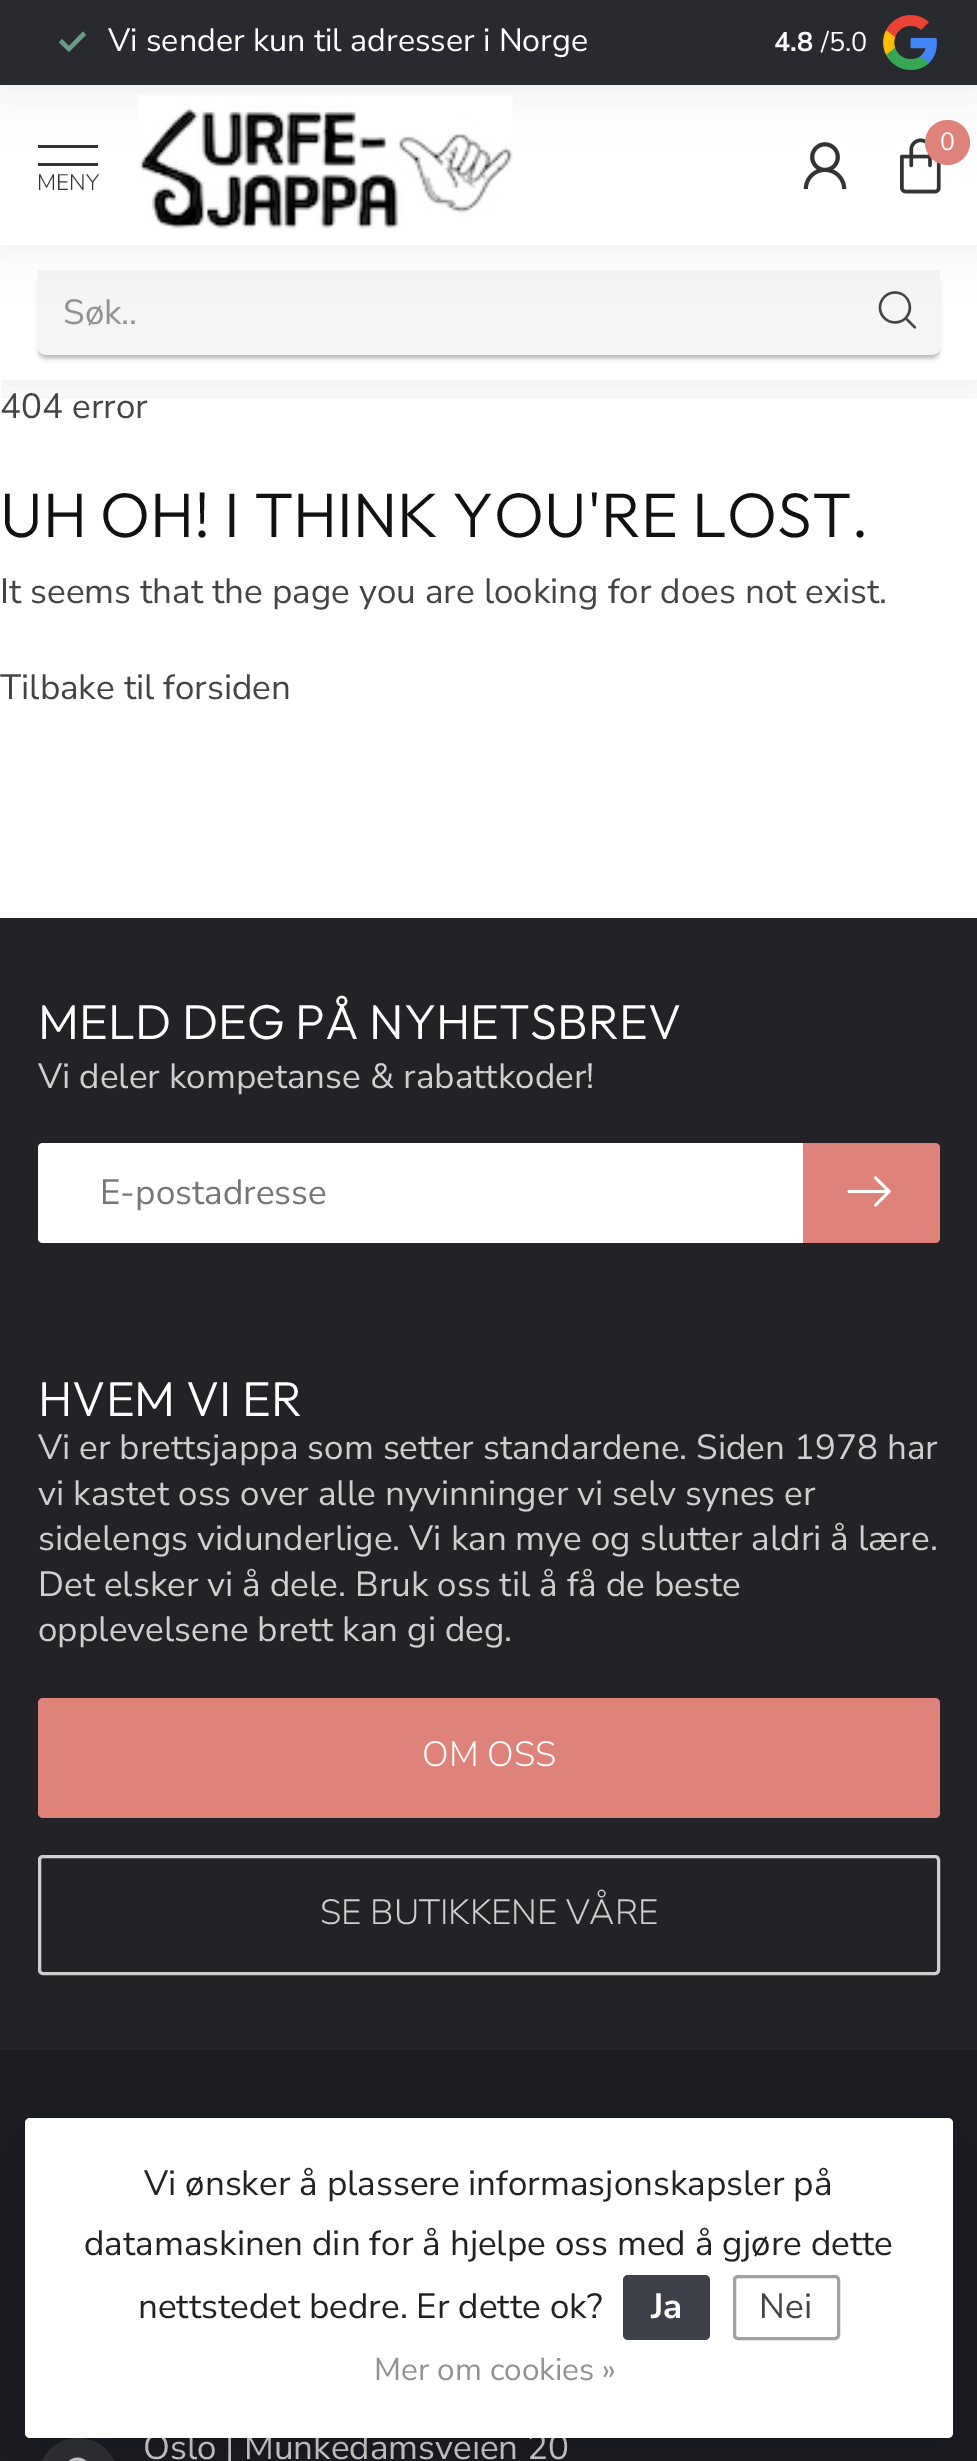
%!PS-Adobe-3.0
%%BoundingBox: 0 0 977 2461
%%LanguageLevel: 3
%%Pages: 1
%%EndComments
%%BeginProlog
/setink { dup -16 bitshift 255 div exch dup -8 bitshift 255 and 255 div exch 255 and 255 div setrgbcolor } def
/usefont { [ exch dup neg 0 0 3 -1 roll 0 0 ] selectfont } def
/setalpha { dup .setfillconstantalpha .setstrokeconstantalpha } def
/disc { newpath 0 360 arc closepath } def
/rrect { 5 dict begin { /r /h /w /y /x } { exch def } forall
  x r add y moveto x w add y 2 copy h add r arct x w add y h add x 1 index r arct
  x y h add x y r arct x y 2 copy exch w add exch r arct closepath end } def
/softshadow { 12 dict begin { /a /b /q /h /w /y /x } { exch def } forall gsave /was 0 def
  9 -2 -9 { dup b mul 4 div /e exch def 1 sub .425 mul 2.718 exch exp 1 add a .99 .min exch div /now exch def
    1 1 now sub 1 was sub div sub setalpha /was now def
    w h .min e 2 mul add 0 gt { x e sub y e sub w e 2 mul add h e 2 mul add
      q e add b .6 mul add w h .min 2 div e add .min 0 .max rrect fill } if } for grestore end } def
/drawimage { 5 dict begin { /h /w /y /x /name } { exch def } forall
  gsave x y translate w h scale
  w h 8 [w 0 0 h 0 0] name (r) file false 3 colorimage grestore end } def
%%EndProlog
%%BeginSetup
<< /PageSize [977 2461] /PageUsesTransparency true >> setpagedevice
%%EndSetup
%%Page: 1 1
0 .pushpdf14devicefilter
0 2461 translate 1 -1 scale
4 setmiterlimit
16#FFFFFF setink
0 0 977 2461 rectfill
gsave
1 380 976 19 rectclip
16#000000 setink
0 245 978 135 0 27.5 0.08 softshadow
grestore
16#9B9B9B setink
40 278 898 80 5 2.5 0.75 softshadow
16#FFFFFF setink
38 270 902 85 8 rrect fill
0.05 setalpha
16#333333 setink
38 270 902 85 rectfill
1 setalpha
(img5.raw) 878 291 39 38 drawimage
16#000000 setink
0 0 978 245 0 25 0.07 softshadow
16#FFFFFF setink
0 85 977 160 rectfill
16#000000 setink
0 0 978 85 0 27.5 0.08 softshadow
16#282A30 setink
0 0 977 85 rectfill
16#6C9A87 setink
69 52 moveto 59 42.5 lineto 62 39 lineto 69 46 lineto 83 31.5 lineto 86 35 lineto closepath fill
/NunitoSans-Regular 32.25 usefont
16#FFFFFF setink
108 51 moveto (Vi sender kun til adresser i Norge) show
/NunitoSans-Bold 27 usefont
774 51 moveto (4.8) show
/NunitoSans-Regular 27 usefont
821 51 moveto (/5.0) show
(img1.raw) 883 15 54 55 drawimage
(img2.raw) 803 142 44 48 drawimage
(img3.raw) 900 138 41 56 drawimage
16#DF8279 setink
947.5 142.5 22.5 disc fill
/NunitoSans-Regular 25 usefont
16#FFFFFF setink
940 150 moveto (0) show
16#333333 setink
38 145 60 3 rectfill
38 163 60 3 rectfill
/NunitoSans-Light 22.5 usefont
37 190 moveto (MENY) show
(img4.raw) 138 95 375 134 drawimage
/NunitoSans-Regular 35 usefont
16#929292 setink
63 324 moveto (Søk..) show
16#444444 setink
0 418 moveto (404 error) show
/Outfit-Light 63 usefont
16#111111 setink
0 537 moveto (UH OH! I THINK YOU'RE LOST.) show
/NunitoSans-Regular 35 usefont
16#444444 setink
0 603 moveto (It seems that the page you are looking for does not exist.) show
0 699 moveto (Tilbake til forsiden) show
16#1B1C21 setink
0 2050 977 411 rectfill
16#222227 setink
0 918 977 1132 rectfill
/Outfit-Light 49 usefont
16#FFFFFF setink
38 1039 moveto (MELD DEG PÅ NYHETSBREV) show
/NunitoSans-Regular 35 usefont
16#CFCFCF setink
38 1088 moveto (Vi deler kompetanse & rabattkoder!) show
16#FFFFFF setink
43 1143 moveto 803 1143 lineto 803 1243 lineto 43 1243 lineto 40 1243 38 1241 38 1238 curveto 38 1148 lineto 38 1145 40 1143 43 1143 curveto closepath fill
16#757575 setink
100 1204 moveto (E-postadresse) show
16#DF8279 setink
803 1143 moveto 935 1143 lineto 938 1143 940 1145 940 1148 curveto 940 1238 lineto 940 1241 938 1243 935 1243 curveto 803 1243 lineto closepath fill
(img6.raw) 847 1176 44 31 drawimage
/Outfit-Light 49 usefont
16#FFFFFF setink
38 1416 moveto (HVEM VI ER) show
/NunitoSans-Regular 35 usefont
16#CFCFCF setink
[
    [(Vi er brettsjappa som setter standardene. Siden 1978 har) 38 1459]
    [(vi kastet oss over alle nyvinninger vi selv synes er) 38 1505]
    [(sidelengs vidunderlige. Vi kan mye og slutter aldri å lære.) 38 1550]
    [(Det elsker vi å dele. Bruk oss til å få de beste) 38 1596]
    [(opplevelsene brett kan gi deg.) 38 1641]
] { aload pop moveto show } forall
16#DF8279 setink
38 1698 902 120 5 rrect fill
/NunitoSans-Light 35 usefont
16#FFFFFF setink
422 1766 moveto (OM OSS) show
16#CFCFCF setink
3 setlinewidth
39.5 1856.5 899 117 3.5 rrect stroke
320 1924 moveto (SE BUTIKKENE VÅRE) show
16#2F3035 setink
38 2438 80 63 40 rrect fill
(img7.raw) 68 2457 19 4 drawimage
/NunitoSans-Regular 35 usefont
16#CFCFCF setink
143 2459 moveto (Oslo | Munkedamsveien 20) show
16#000000 setink
25 2143 928 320 5 37.5 0.15 softshadow
16#FFFFFF setink
25 2118 928 320 5 rrect fill
16#222222 setink
[
    [(Vi ønsker å plassere informasjonskapsler på) 144 2195]
    [(datamaskinen din for å hjelpe oss med å gjøre dette) 84 2255]
    [(nettstedet bedre. Er dette ok?) 138 2318]
] { aload pop moveto show } forall
16#3E414A setink
623 2275 87 65 5 rrect fill
/NunitoSans-Bold 35 usefont
16#FFFFFF setink
651 2318 moveto (Ja) show
16#A1A1A1 setink
734.5 2276.5 104 62 3.5 rrect stroke
/NunitoSans-Regular 35 usefont
16#444444 setink
759 2318 moveto (Nei) show
/NunitoSans-Regular 31.5 usefont
16#929292 setink
374 2380 moveto (Mer om cookies ») show
.poppdf14devicefilter showpage
%%EOF
